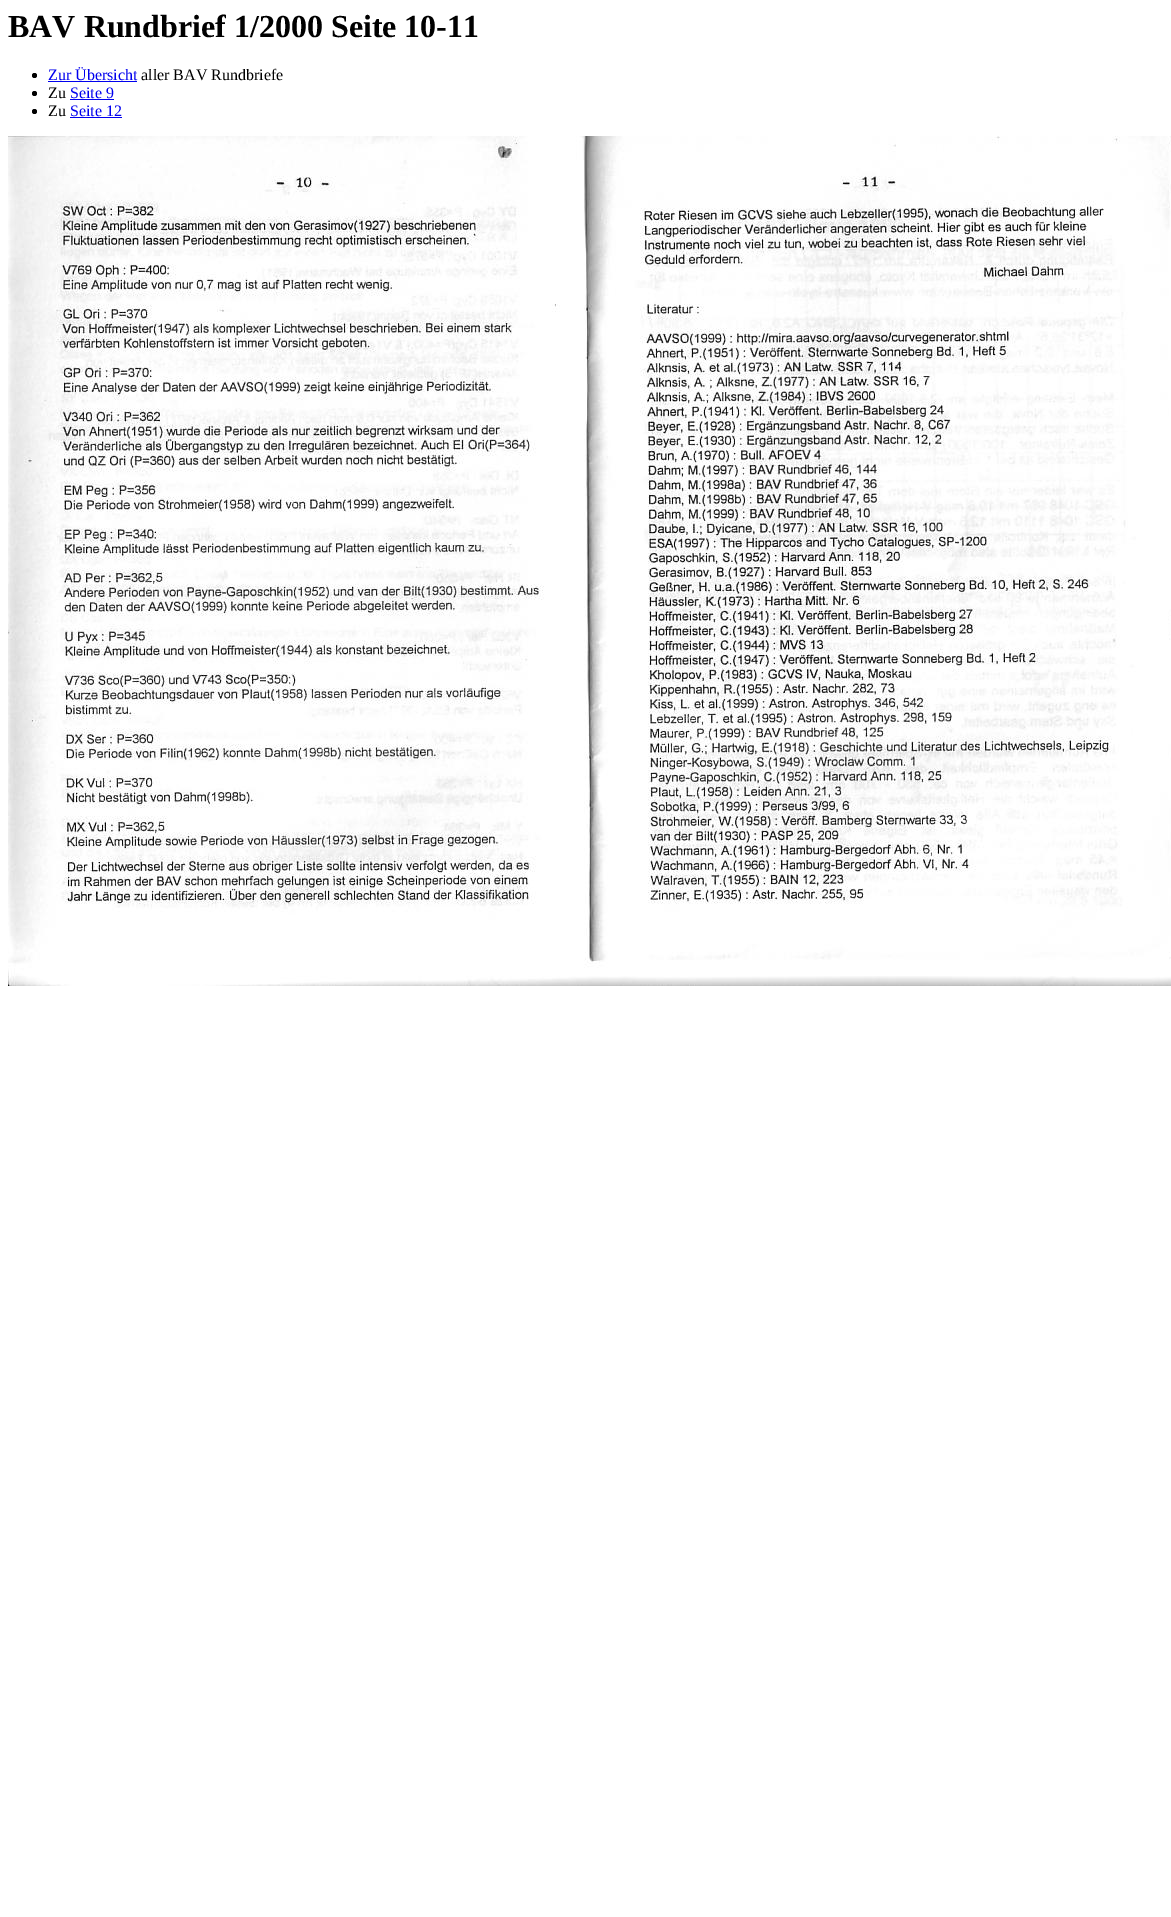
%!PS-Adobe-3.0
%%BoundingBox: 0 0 1171 1917
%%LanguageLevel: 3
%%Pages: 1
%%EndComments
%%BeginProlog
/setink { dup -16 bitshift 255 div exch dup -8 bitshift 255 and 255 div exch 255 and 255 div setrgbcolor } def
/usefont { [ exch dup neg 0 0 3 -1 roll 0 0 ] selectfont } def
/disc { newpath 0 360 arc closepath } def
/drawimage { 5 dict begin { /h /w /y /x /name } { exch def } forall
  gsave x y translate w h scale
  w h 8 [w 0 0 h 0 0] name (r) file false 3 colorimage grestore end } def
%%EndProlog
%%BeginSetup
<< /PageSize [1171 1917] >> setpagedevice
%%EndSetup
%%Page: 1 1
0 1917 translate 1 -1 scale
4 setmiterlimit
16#FFFFFF setink
0 0 1171 1917 rectfill
/LiberationSerif-Bold 32 usefont
16#000000 setink
8 37 moveto (BAV Rundbrief 1/2000 Seite 10-11) show
34.5 75.5 2.5 disc fill
/LiberationSerif-Regular 16 usefont
16#0000EE setink
48 80 moveto (Zur Übersicht) show
48 81 89 1 rectfill
16#000000 setink
141 80 moveto (aller BAV Rundbriefe) show
34.5 93.5 2.5 disc fill
48 98 moveto (Zu) show
16#0000EE setink
70 98 moveto (Seite 9) show
70 99 44 1 rectfill
16#000000 setink
34.5 111.5 2.5 disc fill
48 116 moveto (Zu) show
16#0000EE setink
70 116 moveto (Seite 12) show
70 117 52 1 rectfill
(img1.raw) 8 136 1163 850 drawimage
showpage
%%EOF
